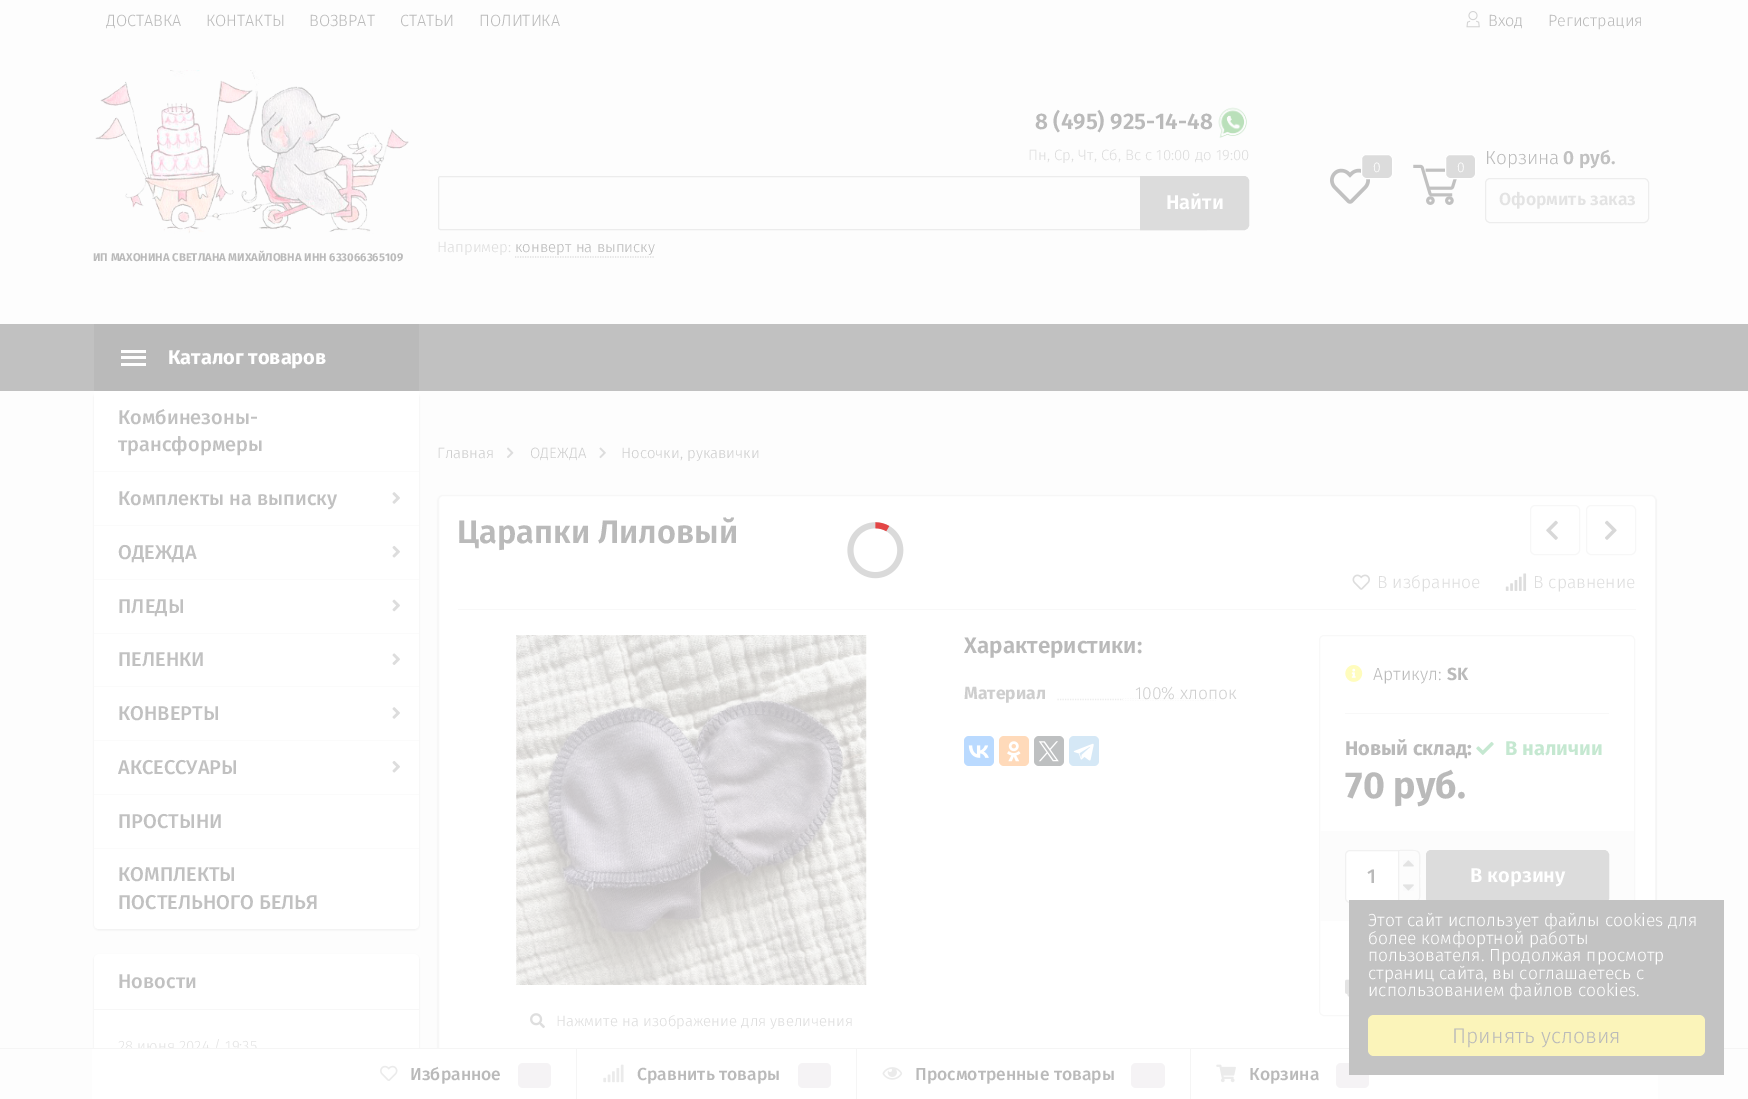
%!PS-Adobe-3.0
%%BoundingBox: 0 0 1748 1099
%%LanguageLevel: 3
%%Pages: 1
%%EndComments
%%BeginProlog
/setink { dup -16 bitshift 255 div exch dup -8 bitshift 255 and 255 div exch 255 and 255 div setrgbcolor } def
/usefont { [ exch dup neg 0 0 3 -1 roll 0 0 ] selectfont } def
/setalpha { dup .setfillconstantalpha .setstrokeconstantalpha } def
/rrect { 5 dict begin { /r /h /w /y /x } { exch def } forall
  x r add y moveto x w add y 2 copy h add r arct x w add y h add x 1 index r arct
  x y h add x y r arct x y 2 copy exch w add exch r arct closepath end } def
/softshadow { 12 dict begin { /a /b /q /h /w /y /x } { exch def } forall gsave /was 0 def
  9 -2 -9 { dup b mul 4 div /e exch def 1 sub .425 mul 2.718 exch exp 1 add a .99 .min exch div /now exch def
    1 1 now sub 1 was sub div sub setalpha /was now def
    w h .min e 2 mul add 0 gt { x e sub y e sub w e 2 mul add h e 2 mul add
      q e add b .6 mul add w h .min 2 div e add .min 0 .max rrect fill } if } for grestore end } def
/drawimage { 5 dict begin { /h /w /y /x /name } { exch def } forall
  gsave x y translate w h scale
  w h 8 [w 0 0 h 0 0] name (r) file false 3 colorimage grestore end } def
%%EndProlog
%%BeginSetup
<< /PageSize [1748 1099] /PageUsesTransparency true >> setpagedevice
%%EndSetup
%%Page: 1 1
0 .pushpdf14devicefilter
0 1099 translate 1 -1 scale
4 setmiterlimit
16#FDFDFD setink
0 0 1748 1099 rectfill
/FiraSans-Light 16.25 usefont
16#BABABA setink
[
    [(ДОСТАВКА) 106 26]
    [(КОНТАКТЫ) 206 26]
    [(ВОЗВРАТ) 309 26]
    [(СТАТЬИ) 400 26]
    [(ПОЛИТИКА) 479 26]
] { aload pop moveto show } forall
(img1.raw) 1466 11 14 17 drawimage
1488 26 moveto (Вход) show
1548 26 moveto (Регистрация) show
(img2.raw) 95 70 314 164 drawimage
/FiraSans-Bold 11.25 usefont
93 261 moveto (ИП МАХОНИНА СВЕТЛАНА МИХАЙЛОВНА ИНН 633066365109) show
/FiraSans-SemiBold 22.5 usefont
1035 129 moveto (8 \(495\) 925-14-48) show
(img3.raw) 1218 107 29 31 drawimage
/FiraSans-Light 15 usefont
16#DDDDDD setink
1028 160 moveto (Пн, Ср, Чт, Сб, Вс с 10:00 до 19:00) show
16#ECECEC setink
438.5 176.5 770 53 2 rrect stroke
16#DCDCDC setink
1140.5 176.5 moveto 1244 176.5 lineto 1246.5 176.5 1248.5 178.5 1248.5 181 curveto 1248.5 225 lineto 1248.5 227.5 1246.5 229.5 1244 229.5 curveto 1140.5 229.5 lineto closepath gsave fill grestore
stroke
/FiraSans-SemiBold 20 usefont
16#FFFFFF setink
1166 209 moveto (Найти) show
/FiraSans-Light 15 usefont
16#DDDDDD setink
437 252 moveto (Например:) show
16#BABABA setink
515 252 moveto (конверт на выписку) show
16#DDDDDD setink
1.2 setlinewidth
[1.25 1.25] 0 setdash
515 257 moveto 655 257 lineto stroke
(img4.raw) 1330 168 40 36 drawimage
16#DCDCDC setink
1361.5 154.5 31 24 4.5 rrect gsave fill grestore
16#FFFFFF setink
1 setlinewidth
[] 0 setdash
stroke
/FiraSans-Light 14 usefont
1373 172 moveto (0) show
(img5.raw) 1413 164 44 41 drawimage
16#DCDCDC setink
1445.5 154.5 30 24 4.5 rrect gsave fill grestore
16#FFFFFF setink
stroke
1457 172 moveto (0) show
/FiraSans-Light 19 usefont
16#BABABA setink
1485 164 moveto (Корзина) show
/FiraSans-SemiBold 19 usefont
16#C1C1C1 setink
1563 164 moveto (0 руб.) show
16#EDEDED setink
1485.5 178.5 163 44 4.5 rrect stroke
/FiraSans-SemiBold 17.5 usefont
16#E3E3E3 setink
1499 205 moveto (Оформить заказ) show
[
    [0 324 1748 67 16#C1C1C1]
    [94 324 325 67 16#BABABA]
    [121 350 25 3 16#FFFFFF]
    [121 356 25 3 16#FFFFFF]
    [121 363 25 3 16#FFFFFF]
] { aload pop setink rectfill } forall
/FiraSans-Bold 20 usefont
168 364 moveto (Каталог товаров) show
16#BABABA setink
94 393 325 537 5 1 0.2 softshadow
16#FFFFFF setink
94 391 moveto 419 391 lineto 419 924 lineto 419 927 417 929 414 929 curveto 99 929 lineto 96 929 94 927 94 924 curveto closepath fill
16#FBFBFB setink
94 471 325 1 rectfill
/FiraSans-Medium 20 usefont
16#C1C1C1 setink
118 424 moveto (Комбинезоны-) show
118 451 moveto (трансформеры) show
16#FBFBFB setink
94 525 325 1 rectfill
16#C1C1C1 setink
118 505 moveto (Комплекты на выписку) show
(img6.raw) 392 492 8 12 drawimage
16#FBFBFB setink
94 579 325 1 rectfill
16#C1C1C1 setink
118 559 moveto (ОДЕЖДА) show
(img7.raw) 392 545 8 13 drawimage
16#FBFBFB setink
94 633 325 1 rectfill
16#C1C1C1 setink
118 613 moveto (ПЛЕДЫ) show
(img8.raw) 392 599 8 13 drawimage
16#FBFBFB setink
94 686 325 1 rectfill
16#C1C1C1 setink
118 666 moveto (ПЕЛЕНКИ) show
(img9.raw) 392 653 8 12 drawimage
16#FBFBFB setink
94 740 325 1 rectfill
16#C1C1C1 setink
118 720 moveto (КОНВЕРТЫ) show
(img6.raw) 392 707 8 12 drawimage
16#FBFBFB setink
94 794 325 1 rectfill
16#C1C1C1 setink
118 774 moveto (АКСЕССУАРЫ) show
(img7.raw) 392 760 8 13 drawimage
16#FBFBFB setink
94 848 325 1 rectfill
16#C1C1C1 setink
[
    [(ПРОСТЫНИ) 118 828]
    [(КОМПЛЕКТЫ) 118 881]
    [(ПОСТЕЛЬНОГО БЕЛЬЯ) 118 909]
] { aload pop moveto show } forall
16#BABABA setink
94 955 325 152 5 1 0.2 softshadow
16#FFFFFF setink
94 954 325 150 5 rrect fill
16#F7F7F7 setink
94 1009 325 1 rectfill
16#C1C1C1 setink
118 988 moveto (Новости) show
/FiraSans-Light 15 usefont
16#E3E3E3 setink
118 1051 moveto (28 июня 2024 / 19:35) show
16#CECECE setink
437 458 moveto (Главная) show
(img10.raw) 507 447 7 11 drawimage
530 458 moveto (ОДЕЖДА) show
(img11.raw) 599 447 7 12 drawimage
621 458 moveto (Носочки, рукавички) show
16#BABABA setink
438 496 1218 573 5 1 0.2 softshadow
16#FFFFFF setink
438 495 1218 573 5 rrect fill
0.12 setalpha
16#BABABA setink
438.5 495.5 1217 572 4.5 rrect stroke
1 setalpha
16#F8F8F8 setink
458 609 1178 1 rectfill
/FiraSans-SemiBold 32.5 usefont
16#BABABA setink
457 543 moveto (Царапки Лиловый) show
16#F7F7F7 setink
1530.5 505.5 49 49 4.5 rrect stroke
(img12.raw) 1546 520 12 20 drawimage
1586.5 505.5 49 49 4.5 rrect stroke
(img13.raw) 1605 520 12 20 drawimage
(img14.raw) 1352 574 18 16 drawimage
/FiraSans-Light 17.5 usefont
16#DDDDDD setink
1377 588 moveto (В избранное) show
(img15.raw) 1505 573 22 18 drawimage
1533 588 moveto (В сравнение) show
/FiraSans-SemiBold 22.5 usefont
16#BABABA setink
964 653 moveto (Характеристики:) show
/FiraSans-Bold 17.5 usefont
16#CECECE setink
964 699 moveto (Материал) show
16#ECECEC setink
1.2 setlinewidth
[1.25 1.25] 0 setdash
1057.5 699.5 moveto 1216 699.5 lineto stroke
16#FFFFFF setink
1123 699 93 1 rectfill
/FiraSans-Light 17.5 usefont
16#CECECE setink
1135 699 moveto (100% хлопок) show
16#BADAFF setink
964 736 30 30 5 rrect fill
(img16.raw) 968 745 21 13 drawimage
16#FFDABA setink
999 736 30 30 5 rrect fill
(img17.raw) 1007 741 14 21 drawimage
16#BEC0C1 setink
1034 736 30 30 5 rrect fill
(img18.raw) 1038 741 21 21 drawimage
16#D5E8F6 setink
1069 736 30 30 5 rrect fill
(img19.raw) 1073 743 21 18 drawimage
16#F8F8F8 setink
1 setlinewidth
[] 0 setdash
1319.5 635.5 315 380 4.5 rrect stroke
1345 713 264 1 rectfill
(img20.raw) 1345 665 18 17 drawimage
16#BABABA setink
1373 680 moveto (Артикул:) show
/FiraSans-Bold 17.5 usefont
1447 680 moveto (SK) show
/FiraSans-Bold 20 usefont
1345 755 moveto (Новый склад:) show
(img21.raw) 1476 741 18 14 drawimage
16#C5E8D1 setink
1505 755 moveto (В наличии) show
/FiraSans-Bold 37.5 usefont
16#BABABA setink
1345 798 moveto (70 руб.) show
16#FCFCFC setink
1320 831 314 90 rectfill
16#FFFFFF setink
1350 850.5 moveto 1398.5 850.5 lineto 1398.5 902.5 lineto 1350 902.5 lineto 1347.5 902.5 1345.5 900.5 1345.5 898 curveto 1345.5 855 lineto 1345.5 852.5 1347.5 850.5 1350 850.5 curveto closepath gsave fill grestore
16#F1F1F1 setink
stroke
/FiraSans-Medium 20 usefont
16#BABABA setink
1367 883 moveto (1) show
0.15 setalpha
1399 850 moveto 1425 850 1420 847 1420 876 curveto 1420 905 1425 902 1399 902 curveto closepath 1399 851 moveto 1415 851 lineto 1417 851 1419 853 1419 855 curveto 1419 898 lineto 1419 900 1417 901 1415 901 curveto 1399 901 lineto closepath eofill
1 setalpha
(img22.raw) 1403 860 11 7 drawimage
(img23.raw) 1403 884 11 7 drawimage
16#DCDCDC setink
1426.5 850.5 182 52 4.5 rrect gsave fill grestore
stroke
/FiraSans-SemiBold 20 usefont
16#FFFFFF setink
1470 882 moveto (В корзину) show
(img24.raw) 1345 979 4 18 drawimage
(img25.raw) 516 635 351 350 drawimage
(img26.raw) 530 1013 15 16 drawimage
/FiraSans-Light 15 usefont
16#DDDDDD setink
556 1026 moveto (Нажмите на изображение для увеличения) show
(img27.raw) 847 522 57 57 drawimage
16#FFFFFF setink
92 1049 1566 50 rectfill
16#F5F5F5 setink
0 1048 1748 1 rectfill
16#F5F3F5 setink
1336 1063 33 25 5 rrect fill
16#C3C3C3 setink
1349 900 375 175 rectfill
/FiraSans-Light 17.5 usefont
16#FFFFFF setink
[
    [(Этот сайт использует файлы cookies для) 1368 926]
    [(более комфортной работы) 1368 944]
    [(пользователя. Продолжая просмотр) 1368 961]
    [(страниц сайта, вы соглашаетесь с) 1368 979]
    [(использованием файлов cookies.) 1368 996]
] { aload pop moveto show } forall
16#FBF4BA setink
1368 1015 337 41 6 rrect fill
/FiraSans-Light 21.25 usefont
16#BABABA setink
1452 1043 moveto (Принять условия) show
16#F5F5F5 setink
576 1049 1 50 rectfill
(img28.raw) 380 1065 18 16 drawimage
/FiraSans-Medium 17.5 usefont
16#BABABA setink
410 1080 moveto (Избранное) show
16#F5F3F5 setink
518 1063 33 25 5 rrect fill
16#F5F5F5 setink
856 1049 1 50 rectfill
(img29.raw) 603 1064 21 19 drawimage
16#BABABA setink
637 1080 moveto (Сравнить товары) show
16#F5F3F5 setink
798 1063 33 25 5 rrect fill
16#F5F5F5 setink
1190 1049 1 50 rectfill
(img30.raw) 882 1067 21 13 drawimage
16#BABABA setink
915 1080 moveto (Просмотренные товары) show
16#F5F3F5 setink
1131 1063 34 25 5 rrect fill
(img31.raw) 1216 1064 20 19 drawimage
16#BABABA setink
1249 1080 moveto (Корзина) show
.poppdf14devicefilter showpage
%%EOF
